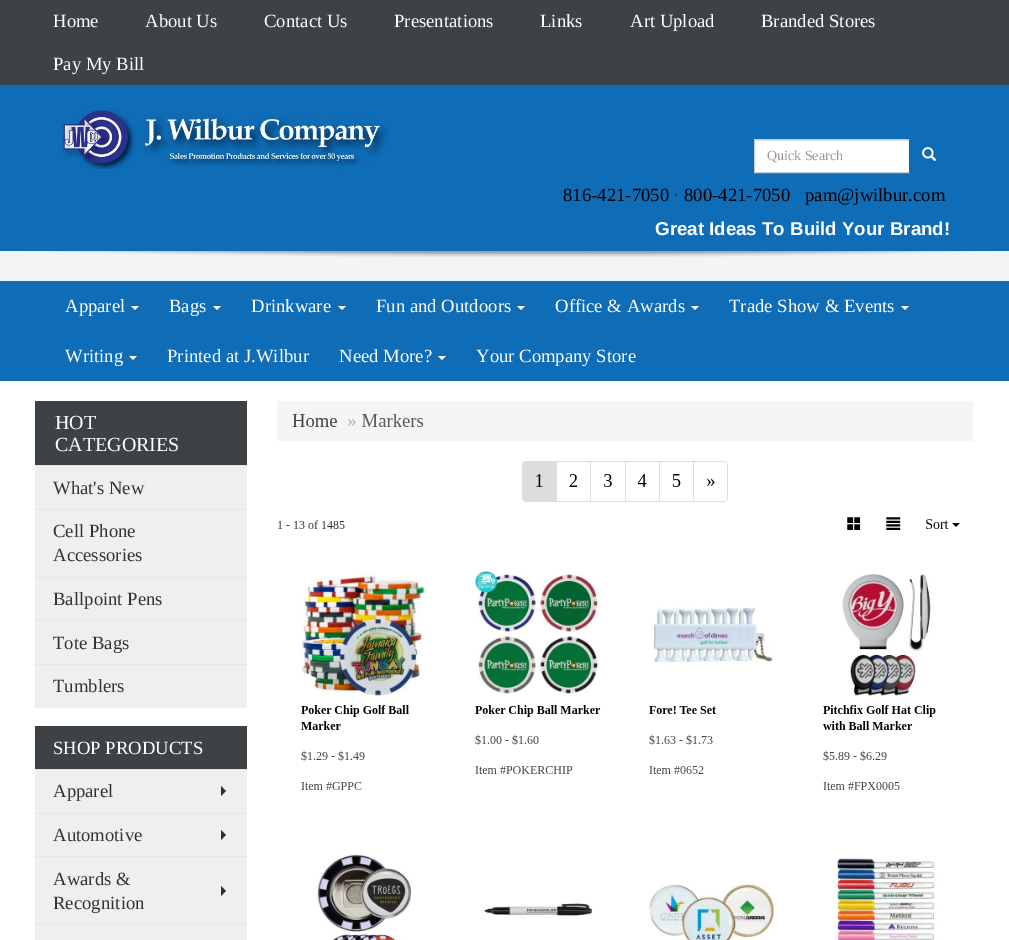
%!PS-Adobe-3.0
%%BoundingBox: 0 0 1009 940
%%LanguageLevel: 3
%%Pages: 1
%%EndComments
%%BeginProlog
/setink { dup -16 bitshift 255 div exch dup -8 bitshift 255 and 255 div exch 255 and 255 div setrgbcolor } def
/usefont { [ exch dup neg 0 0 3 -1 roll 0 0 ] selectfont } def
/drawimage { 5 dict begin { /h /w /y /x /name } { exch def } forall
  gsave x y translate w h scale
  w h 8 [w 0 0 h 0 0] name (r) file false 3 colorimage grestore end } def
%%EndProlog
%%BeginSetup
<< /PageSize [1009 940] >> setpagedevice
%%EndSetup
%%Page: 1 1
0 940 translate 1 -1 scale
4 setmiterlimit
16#F4F4F4 setink
0 0 1009 940 rectfill
16#3F4245 setink
0 0 1009 85 rectfill
/LiberationSerif-Regular 18.7 usefont
16#FFFFFF setink
[
    [(Home) 53 27]
    [(About Us) 145 27]
    [(Contact Us) 264 27]
    [(Presentations) 394 27]
    [(Links) 540 27]
    [(Art Upload) 630 27]
    [(Branded Stores) 761 27]
    [(Pay My Bill) 53 70]
] { aload pop moveto show } forall
16#0F6CB6 setink
0 85 1009 166 rectfill
(img1.raw) 62 105 327 64 drawimage
16#FFFFFF setink
755 141 154 31 rectfill
16#ECECEC setink
755 140 154 1 rectfill
16#CCCCCC setink
754.5 139.5 155 33 rectstroke
/LiberationSerif-Regular 14 usefont
16#999999 setink
767 160 moveto (Quick Search) show
16#0F6CB6 setink
909 139 moveto 945 139 lineto 947 139 949 141 949 143 curveto 949 169 lineto 949 171 947 173 945 173 curveto 909 173 lineto closepath fill
(img2.raw) 922 147 15 14 drawimage
/LiberationSerif-Regular 18.7 usefont
16#000000 setink
563 201 moveto (816-421-7050) show
16#333333 setink
673 201 moveto (·) show
16#000000 setink
684 201 moveto (800-421-7050) show
805 201 moveto (pam@jwilbur.com) show
/LiberationSans-Bold 18.7 usefont
16#FFFFFF setink
655 235 moveto (Great Ideas To Build Your Brand!) show
(img3.raw) 22 251 972 6 drawimage
16#0F6CB6 setink
0 281 1009 100 rectfill
/LiberationSerif-Regular 18.7 usefont
16#FFFFFF setink
65 312 moveto (Apparel) show
131 306 moveto 139 306 lineto 135 310 lineto closepath fill
169 312 moveto (Bags) show
213 306 moveto 221 306 lineto 217 310 lineto closepath fill
251 312 moveto (Drinkware) show
338 306 moveto 346 306 lineto 342 310 lineto closepath fill
376 312 moveto (Fun and Outdoors) show
517 306 moveto 525 306 lineto 521 310 lineto closepath fill
555 312 moveto (Office & Awards) show
691 306 moveto 699 306 lineto 695 310 lineto closepath fill
729 312 moveto (Trade Show & Events) show
901 306 moveto 909 306 lineto 905 310 lineto closepath fill
65 362 moveto (Writing) show
129 356 moveto 137 356 lineto 133 360 lineto closepath fill
167 362 moveto (Printed at J.Wilbur) show
339 362 moveto (Need More?) show
438 356 moveto 446 356 lineto 442 360 lineto closepath fill
476 362 moveto (Your Company Store) show
0 381 1009 559 rectfill
16#3F4245 setink
35 401 212 64 rectfill
/LiberationSerif-Regular 20 usefont
16#FFFFFF setink
55 429 moveto (HOT) show
55 451 moveto (CATEGORIES) show
16#EFEFEF setink
35 466 212 43 rectfill
16#E5E5E5 setink
35 465 212 1 rectfill
/LiberationSerif-Regular 18.7 usefont
16#333333 setink
53 494 moveto (What's New) show
16#EFEFEF setink
35 510 212 67 rectfill
16#E5E5E5 setink
35 509 212 1 rectfill
16#333333 setink
53 537 moveto (Cell Phone) show
53 561 moveto (Accessories) show
16#EFEFEF setink
35 578 212 42 rectfill
16#E5E5E5 setink
35 577 212 1 rectfill
16#333333 setink
53 605 moveto (Ballpoint Pens) show
16#EFEFEF setink
35 621 212 43 rectfill
16#E5E5E5 setink
35 620 212 1 rectfill
16#333333 setink
53 649 moveto (Tote Bags) show
16#EFEFEF setink
35 665 212 43 rectfill
16#E5E5E5 setink
35 664 212 1 rectfill
16#333333 setink
53 692 moveto (Tumblers) show
16#3F4245 setink
35 726 212 43 rectfill
16#FFFFFF setink
53 754 moveto (SHOP PRODUCTS) show
16#EFEFEF setink
35 770 212 43 rectfill
16#E5E5E5 setink
35 769 212 1 rectfill
16#333333 setink
53 797 moveto (Apparel) show
16#2E2E2E setink
221 796 moveto 221 786 lineto 226 791 lineto closepath fill
16#EFEFEF setink
35 814 212 42 rectfill
16#E5E5E5 setink
35 813 212 1 rectfill
16#333333 setink
53 841 moveto (Automotive) show
16#2E2E2E setink
221 840 moveto 221 830 lineto 226 835 lineto closepath fill
16#EFEFEF setink
35 857 212 67 rectfill
16#E5E5E5 setink
35 856 212 1 rectfill
16#333333 setink
53 885 moveto (Awards &) show
16#2E2E2E setink
221 896 moveto 221 886 lineto 226 891 lineto closepath fill
16#333333 setink
53 909 moveto (Recognition) show
16#EFEFEF setink
35 925 212 15 rectfill
16#E5E5E5 setink
35 924 212 1 rectfill
(img4.raw) 277 401 696 539 drawimage
showpage
%%EOF
